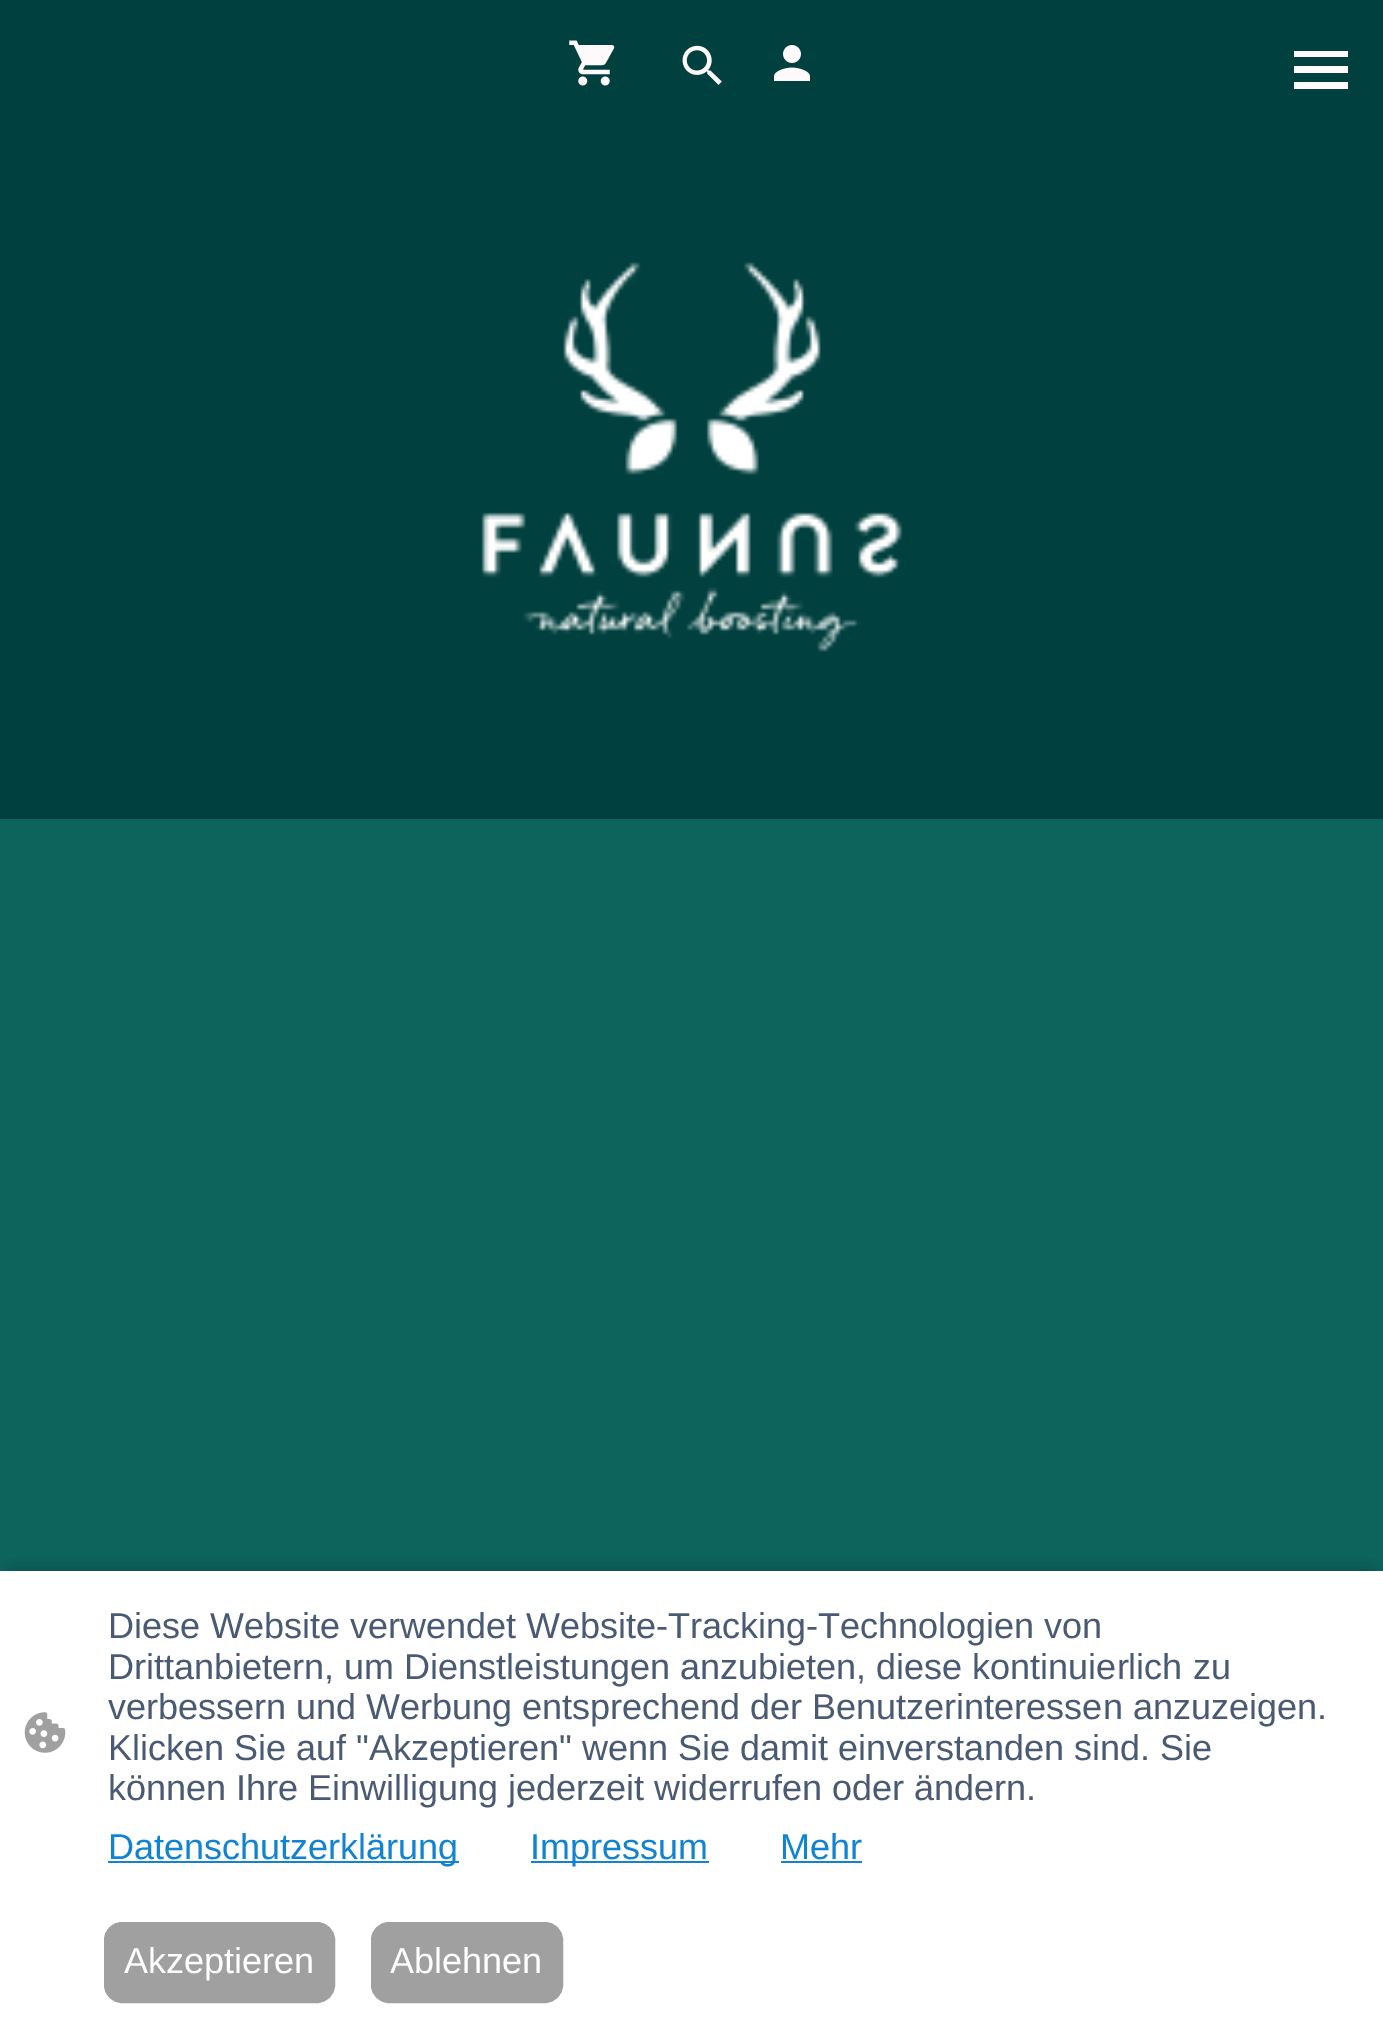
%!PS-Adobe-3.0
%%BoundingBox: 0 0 1383 2019
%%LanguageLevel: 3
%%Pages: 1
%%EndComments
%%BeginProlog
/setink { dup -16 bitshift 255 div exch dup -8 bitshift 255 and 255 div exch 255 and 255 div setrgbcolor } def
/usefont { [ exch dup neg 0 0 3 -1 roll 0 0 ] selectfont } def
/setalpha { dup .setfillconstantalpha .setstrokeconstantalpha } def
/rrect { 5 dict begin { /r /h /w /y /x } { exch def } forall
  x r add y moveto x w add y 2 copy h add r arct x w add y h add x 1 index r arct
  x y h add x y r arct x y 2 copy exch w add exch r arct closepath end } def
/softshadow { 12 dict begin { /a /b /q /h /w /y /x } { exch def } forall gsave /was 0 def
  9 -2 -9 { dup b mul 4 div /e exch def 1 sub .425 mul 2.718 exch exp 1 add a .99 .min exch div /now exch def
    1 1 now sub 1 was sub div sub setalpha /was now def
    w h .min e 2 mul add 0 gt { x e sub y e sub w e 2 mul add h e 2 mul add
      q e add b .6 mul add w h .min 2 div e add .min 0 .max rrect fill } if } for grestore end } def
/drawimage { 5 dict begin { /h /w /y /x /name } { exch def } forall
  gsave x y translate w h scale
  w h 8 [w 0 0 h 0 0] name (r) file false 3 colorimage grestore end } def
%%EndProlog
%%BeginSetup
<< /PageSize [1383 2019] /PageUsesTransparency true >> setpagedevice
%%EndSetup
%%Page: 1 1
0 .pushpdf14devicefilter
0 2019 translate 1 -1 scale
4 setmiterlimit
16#00403E setink
0 0 1383 2019 rectfill
(img1.raw) 569 40 46 46 drawimage
(img2.raw) 682 45 40 40 drawimage
(img3.raw) 774 45 36 36 drawimage
[
    [1294 51 54 6 16#FEF9FA]
    [1294 66 54 7 16#FEF9FA]
    [1294 82 54 7 16#FEF9FA]
] { aload pop setink rectfill } forall
(img4.raw) 481 262 422 390 drawimage
16#0C645C setink
0 819 1383 752 rectfill
16#000000 setink
14 1577 1356 423 0 9 0.63 softshadow
16#FFFFFF setink
0 1571 1383 448 rectfill
(img5.raw) 24 1712 42 41 drawimage
/LiberationSans-Regular 36 usefont
16#4A5A73 setink
[
    [(Diese Website verwendet Website-Tracking-Technologien von) 108 1638]
    [(Drittanbietern, um Dienstleistungen anzubieten, diese kontinuierlich zu) 108 1679]
    [(verbessern und Werbung entsprechend der Benutzerinteressen anzuzeigen.) 108 1719]
    [(Klicken Sie auf "Akzeptieren" wenn Sie damit einverstanden sind. Sie) 108 1760]
    [(können Ihre Einwilligung jederzeit widerrufen oder ändern.) 108 1800]
] { aload pop moveto show } forall
16#1183D1 setink
108 1861 351 2 rectfill
108 1859 moveto (Datenschutzerklärung) show
531 1861 178 2 rectfill
530 1859 moveto (Impressum) show
780 1859 moveto (Mehr) show
781 1861 81 2 rectfill
16#A0A0A0 setink
105 1923 229 79 17 rrect gsave fill grestore
2 setlinewidth
stroke
16#FFFFFF setink
124 1973 moveto (Akzeptieren) show
16#A0A0A0 setink
372 1923 190 79 17 rrect gsave fill grestore
stroke
16#FFFFFF setink
390 1973 moveto (Ablehnen) show
.poppdf14devicefilter showpage
%%EOF
